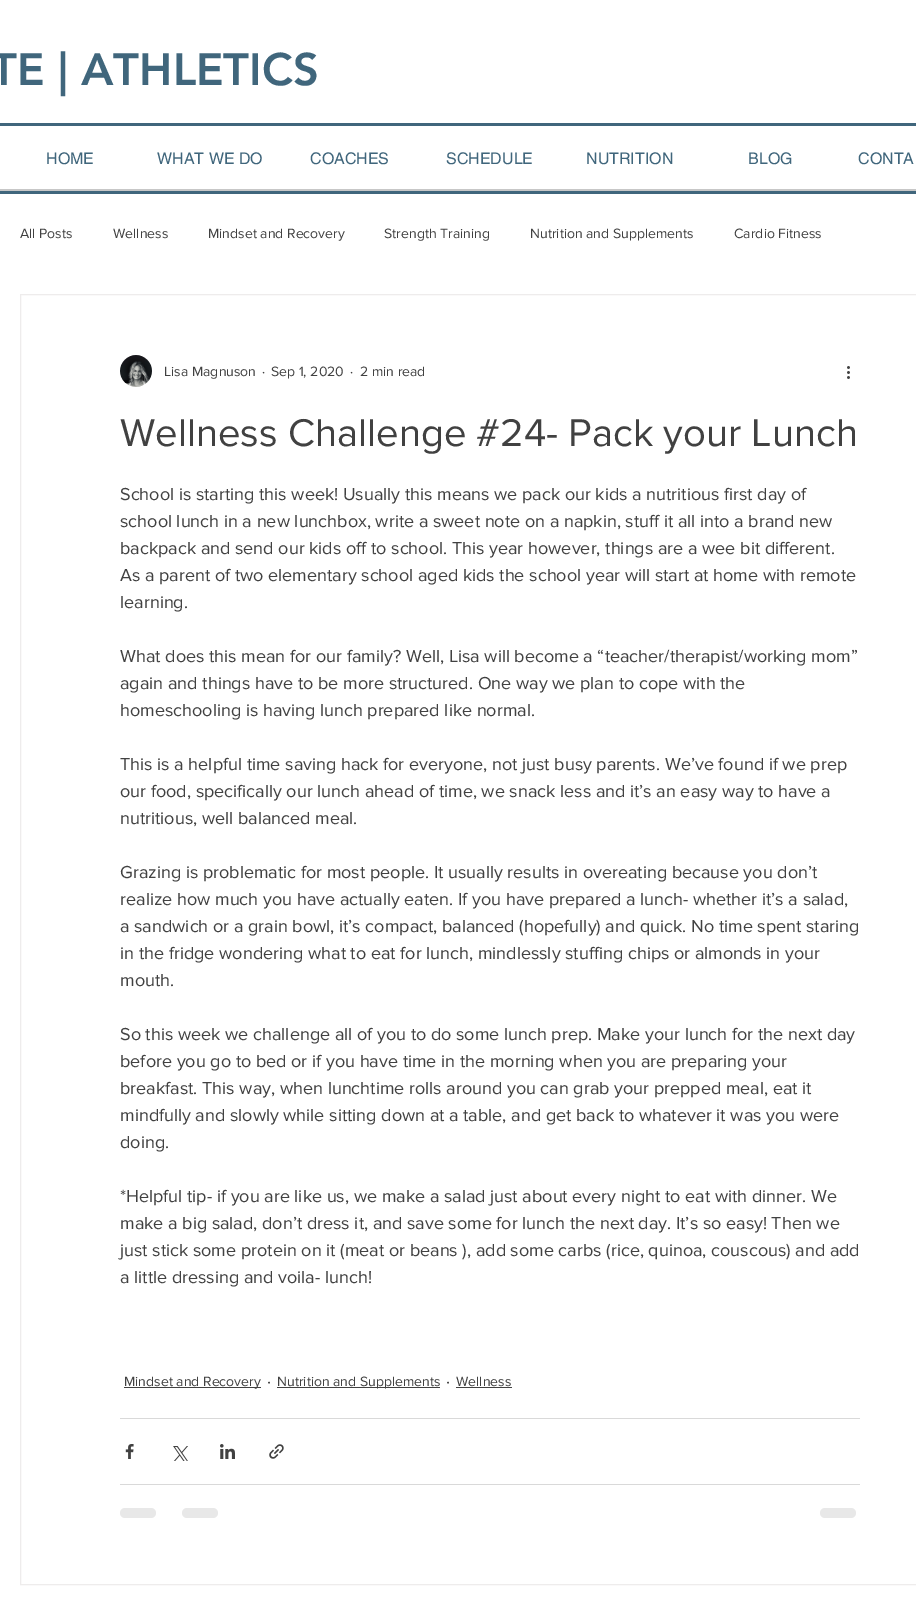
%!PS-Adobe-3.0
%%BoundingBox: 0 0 916 1613
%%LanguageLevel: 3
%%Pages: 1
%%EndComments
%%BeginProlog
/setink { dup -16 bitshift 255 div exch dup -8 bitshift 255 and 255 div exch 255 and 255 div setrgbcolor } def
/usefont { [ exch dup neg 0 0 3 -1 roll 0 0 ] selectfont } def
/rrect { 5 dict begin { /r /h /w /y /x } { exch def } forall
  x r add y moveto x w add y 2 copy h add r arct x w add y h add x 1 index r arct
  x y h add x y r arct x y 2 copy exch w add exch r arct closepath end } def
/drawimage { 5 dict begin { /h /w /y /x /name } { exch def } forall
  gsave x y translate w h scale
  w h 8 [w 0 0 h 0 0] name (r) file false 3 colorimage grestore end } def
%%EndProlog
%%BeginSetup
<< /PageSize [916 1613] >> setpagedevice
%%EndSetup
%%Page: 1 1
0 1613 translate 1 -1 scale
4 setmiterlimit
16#FFFFFF setink
0 0 916 1613 rectfill
/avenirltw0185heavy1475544-Black 45 usefont
16#40667C setink
-9 85 moveto (TE | ATHLETICS) show
0 123 916 3 rectfill
0 191 916 3 rectfill
/helvetica-Regular 16 usefont
[
    [(HOME) 46 164]
    [(WHAT WE DO) 157 164]
    [(COACHES) 310 164]
    [(SCHEDULE) 446 164]
    [(NUTRITION) 586 164]
    [(BLOG) 748 164]
    [(CONTA) 858 164]
] { aload pop moveto show } forall
16#C7C7C7 setink
0 189 916 2 rectfill
/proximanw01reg-Regular 14 usefont
16#414141 setink
[
    [(All Posts) 20 238]
    [(Wellness) 113 238]
    [(Mindset and Recovery) 208 238]
    [(Strength Training) 384 238]
    [(Nutrition and Supplements) 530 238]
    [(Cardio Fitness) 734 238]
] { aload pop moveto show } forall
16#EEECEC setink
20.5 294.5 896 1290 rectstroke
(img1.raw) 120 355 32 32 drawimage
16#414141 setink
[
    [(Lisa Magnuson) 164 376]
    [(·) 262 376]
    [(Sep 1, 2020) 271 376]
    [(·) 350 376]
    [(2 min read) 360 376]
] { aload pop moveto show } forall
(img2.raw) 847 366 3 13 drawimage
/proximanw01reg-Regular 40 usefont
120 446 moveto (Wellness Challenge #24- Pack your Lunch) show
/proximanw01reg-Regular 18 usefont
[
    [(School is starting this week! Usually this means we pack our kids a nutritious first day of) 120 500]
    [(school lunch in a new lunchbox, write a sweet note on a napkin, stuff it all into a brand new) 120 527]
    [(backpack and send our kids off to school. This year however, things are a wee bit different.) 120 554]
    [(As a parent of two elementary school aged kids the school year will start at home with remote) 120 581]
    [(learning.) 120 608]
    [(What does this mean for our family? Well, Lisa will become a “teacher/therapist/working mom”) 120 662]
    [(again and things have to be more structured. One way we plan to cope with the) 120 689]
    [(homeschooling is having lunch prepared like normal.) 120 716]
    [(This is a helpful time saving hack for everyone, not just busy parents. We’ve found if we prep) 120 770]
    [(our food, specifically our lunch ahead of time, we snack less and it’s an easy way to have a) 120 797]
    [(nutritious, well balanced meal.) 120 824]
    [(Grazing is problematic for most people. It usually results in overeating because you don’t) 120 878]
    [(realize how much you have actually eaten. If you have prepared a lunch- whether it’s a salad,) 120 905]
    [(a sandwich or a grain bowl, it’s compact, balanced \(hopefully\) and quick. No time spent staring) 120 932]
    [(in the fridge wondering what to eat for lunch, mindlessly stuffing chips or almonds in your) 120 959]
    [(mouth.) 120 986]
    [(So this week we challenge all of you to do some lunch prep. Make your lunch for the next day) 120 1040]
    [(before you go to bed or if you have time in the morning when you are preparing your) 120 1067]
    [(breakfast. This way, when lunchtime rolls around you can grab your prepped meal, eat it) 120 1094]
    [(mindfully and slowly while sitting down at a table, and get back to whatever it was you were) 120 1121]
    [(doing.) 120 1148]
    [(*Helpful tip- if you are like us, we make a salad just about every night to eat with dinner. We) 120 1202]
    [(make a big salad, don’t dress it, and save some for lunch the next day. It’s so easy! Then we) 120 1229]
    [(just stick some protein on it \(meat or beans \), add some carbs \(rice, quinoa, couscous\) and add) 120 1256]
    [(a little dressing and voila- lunch!) 120 1283]
] { aload pop moveto show } forall
124 1387 137 1 rectfill
/proximanw01reg-Regular 14 usefont
124 1386 moveto (Mindset and Recovery) show
/proximanw01reg-Regular 18 usefont
267 1387 moveto (·) show
277 1387 163 1 rectfill
/proximanw01reg-Regular 14 usefont
277 1386 moveto (Nutrition and Supplements) show
/proximanw01reg-Regular 18 usefont
446 1387 moveto (·) show
/proximanw01reg-Regular 14 usefont
456 1386 moveto (Wellness) show
456 1387 56 1 rectfill
16#D9D9D9 setink
120 1418 740 1 rectfill
(img3.raw) 125 1444 9 15 drawimage
(img4.raw) 173 1446 15 15 drawimage
(img5.raw) 220 1444 15 15 drawimage
(img6.raw) 269 1444 15 15 drawimage
120 1484 740 1 rectfill
16#E8E8E8 setink
120 1508 36 10 5 rrect fill
182 1508 36 10 5 rrect fill
820 1508 36 10 5 rrect fill
showpage
%%EOF
